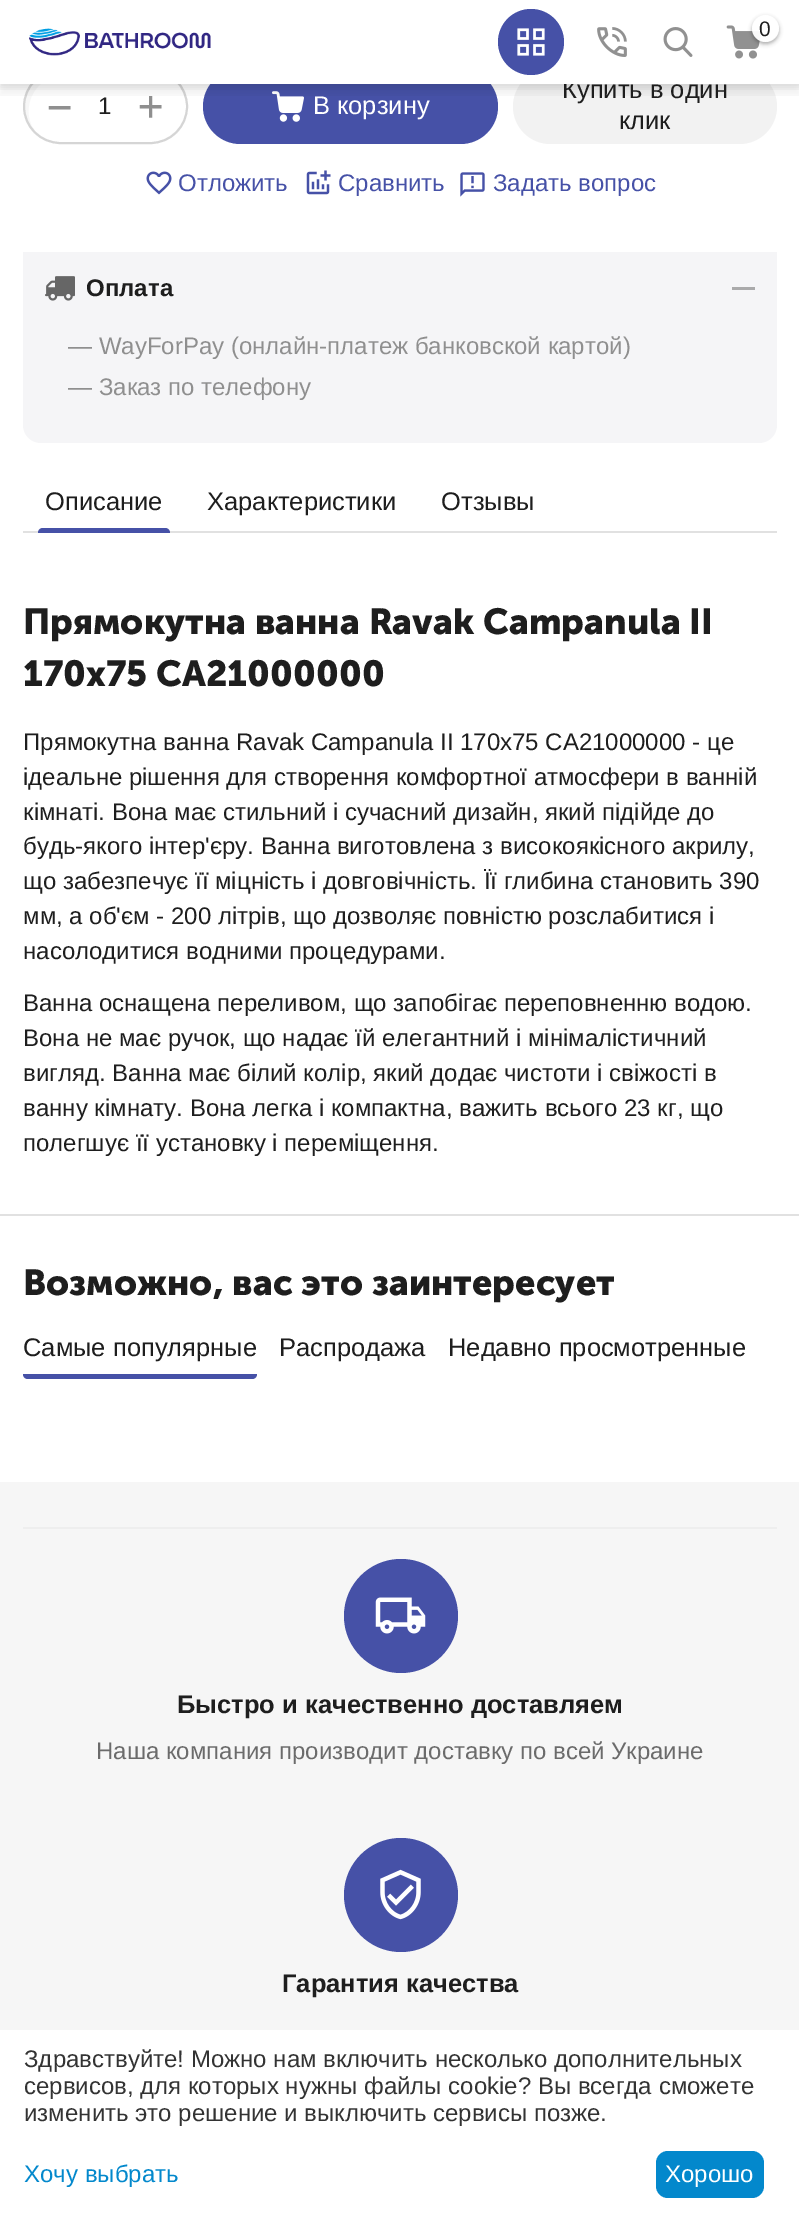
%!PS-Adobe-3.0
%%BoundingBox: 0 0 799 2221
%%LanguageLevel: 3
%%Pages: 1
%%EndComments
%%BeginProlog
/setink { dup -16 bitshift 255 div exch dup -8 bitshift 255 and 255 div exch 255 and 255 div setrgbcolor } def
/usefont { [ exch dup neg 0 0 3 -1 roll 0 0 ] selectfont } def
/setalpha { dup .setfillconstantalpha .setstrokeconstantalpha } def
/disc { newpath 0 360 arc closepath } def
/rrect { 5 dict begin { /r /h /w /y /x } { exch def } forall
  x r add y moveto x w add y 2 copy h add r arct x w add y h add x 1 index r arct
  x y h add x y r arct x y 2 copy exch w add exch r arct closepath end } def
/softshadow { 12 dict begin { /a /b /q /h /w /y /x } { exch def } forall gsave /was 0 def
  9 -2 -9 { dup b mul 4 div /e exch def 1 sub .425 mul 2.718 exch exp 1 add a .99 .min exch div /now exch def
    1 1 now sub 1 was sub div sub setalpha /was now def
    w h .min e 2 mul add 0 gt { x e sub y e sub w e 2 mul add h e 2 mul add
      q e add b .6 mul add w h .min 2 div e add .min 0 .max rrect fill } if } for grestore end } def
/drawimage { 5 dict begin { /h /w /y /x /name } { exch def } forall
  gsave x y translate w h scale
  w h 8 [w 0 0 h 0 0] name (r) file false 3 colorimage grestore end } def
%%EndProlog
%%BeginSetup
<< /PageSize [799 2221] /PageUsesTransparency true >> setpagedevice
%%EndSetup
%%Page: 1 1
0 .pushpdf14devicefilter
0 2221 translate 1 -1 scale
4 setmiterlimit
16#FFFFFF setink
0 0 799 2221 rectfill
16#F7F7F7 setink
64 75 moveto 154 75 lineto 163 75 171 78 177 83 curveto 171 76 161 71 150 71 curveto 60 71 lineto 40 71 24 87 24 107 curveto 24 118 29 129 38 135 curveto 17 113 33 75 64 75 curveto closepath fill
16#D5D5D5 setink
2 setlinewidth
24 70 163 73 36.5 rrect stroke
16#4651A7 setink
203 69 295 75 37.5 rrect fill
16#F2F2F2 setink
513 69 264 75 37.5 rrect fill
/LiberationSans-Regular 25.5 usefont
16#1E1E1E setink
562 98 moveto (Купить в один) show
16#FFFFFF setink
30 69 739 15 rectfill
(img6.raw) 272 91 32 31 drawimage
gsave
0 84 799 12 rectclip
16#000000 setink
0 11 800 84 0 5 0.05 softshadow
grestore
gsave
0 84 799 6 rectclip
16#000000 setink
0 3 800 84 0 4 0.1 softshadow
grestore
(img1.raw) 29 28 182 28 drawimage
16#4651A7 setink
531 42 33 disc fill
(img2.raw) 517 28 28 28 drawimage
(img3.raw) 597 27 30 30 drawimage
(img4.raw) 663 27 30 30 drawimage
(img5.raw) 726 25 36 34 drawimage
gsave
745 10 moveto 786 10 lineto 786 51 lineto 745 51 lineto closepath 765.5 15 moveto 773 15 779 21 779 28.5 curveto 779 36 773 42 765.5 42 curveto 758 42 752 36 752 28.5 curveto 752 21 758 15 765.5 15 curveto closepath eoclip newpath
16#1E1E1E setink
752 17 27 27 13.5 2 0.35 softshadow
grestore
0.95 setalpha
16#FFFFFF setink
765.5 28.5 13.5 disc fill
/LiberationSans-Regular 21 usefont
1 setalpha
16#1E1E1E setink
759 36 moveto (0) show
/DejaVuSansMono-Regular 42 usefont
16#8F8F8F setink
47 121 moveto (−) show
/LiberationSans-Regular 24 usefont
16#1E1E1E setink
98 114 moveto (1) show
/DejaVuSansMono-Regular 42 usefont
16#8F8F8F setink
138 120 moveto (+) show
/LiberationSans-Regular 25.5 usefont
16#FFFFFF setink
313 114 moveto (В корзину) show
16#1E1E1E setink
619 129 moveto (клик) show
(img7.raw) 146 171 26 24 drawimage
/LiberationSans-Regular 24 usefont
16#4651A7 setink
178 191 moveto (Отложить) show
(img8.raw) 306 170 25 25 drawimage
338 191 moveto (Сравнить) show
(img9.raw) 460 172 25 25 drawimage
493 191 moveto (Задать вопрос) show
16#F5F5F7 setink
23 252 moveto 777 252 lineto 777 425 lineto 777 435 769 443 759 443 curveto 41 443 lineto 31 443 23 435 23 425 curveto closepath fill
(img10.raw) 45 276 30 25 drawimage
/LiberationSans-Bold 24 usefont
16#1E1E1E setink
86 296 moveto (Оплата) show
16#AAAAAB setink
732 287 23 3 rectfill
/LiberationSans-Regular 24 usefont
16#8F8F8F setink
68 354 moveto (— WayForPay \(онлайн-платеж банковской картой\)) show
68 395 moveto (— Заказ по телефону) show
/LiberationSans-Regular 25.5 usefont
16#1E1E1E setink
45 510 moveto (Описание) show
16#E1E1E1 setink
23 531 754 2 rectfill
16#4651A7 setink
43 528 moveto 165 528 lineto 168 528 170 530 170 533 curveto 38 533 lineto 38 530 40 528 43 528 curveto closepath fill
16#1E1E1E setink
207 510 moveto (Характеристики) show
441 510 moveto (Отзывы) show
/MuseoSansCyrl-Bold 36 usefont
23 634 moveto (Прямокутна ванна Ravak Campanula II) show
23 686 moveto (170x75 CA21000000) show
/LiberationSans-Regular 24 usefont
[
    [(Прямокутна ванна Ravak Campanula II 170x75 CA21000000 - це) 23 750]
    [(ідеальне рішення для створення комфортної атмосфери в ванній) 23 785]
    [(кімнаті. Вона має стильний і сучасний дизайн, який підійде до) 23 820]
    [(будь-якого інтер'єру. Ванна виготовлена з високоякісного акрилу,) 23 854]
    [(що забезпечує її міцність і довговічність. Її глибина становить 390) 23 889]
    [(мм, а об'єм - 200 літрів, що дозволяє повністю розслабитися і) 23 924]
    [(насолодитися водними процедурами.) 23 959]
    [(Ванна оснащена переливом, що запобігає переповненню водою.) 23 1011]
    [(Вона не має ручок, що надає їй елегантний і мінімалістичний) 23 1046]
    [(вигляд. Ванна має білий колір, який додає чистоти і свіжості в) 23 1081]
    [(ванну кімнату. Вона легка і компактна, важить всього 23 кг, що) 23 1116]
    [(полегшує її установку і переміщення.) 23 1151]
] { aload pop moveto show } forall
16#E1E1E1 setink
0 1214 799 2 rectfill
/MuseoSansCyrl-Bold 36 usefont
16#1E1E1E setink
23 1295 moveto (Возможно, вас это заинтересует) show
/LiberationSans-Regular 25.5 usefont
23 1356 moveto (Самые популярные) show
16#4651A7 setink
23 1374 moveto 257 1374 lineto 257 1377 255 1379 252 1379 curveto 28 1379 lineto 25 1379 23 1377 23 1374 curveto closepath fill
16#1E1E1E setink
279 1356 moveto (Распродажа) show
448 1356 moveto (Недавно просмотренные) show
16#F6F6F6 setink
0 1482 799 548 rectfill
16#EEEEEE setink
23 1527 754 2 rectfill
16#4651A7 setink
401 1616 57 disc fill
(img11.raw) 375 1597 51 37 drawimage
/LiberationSans-Bold 25.5 usefont
16#1E1E1E setink
177 1713 moveto (Быстро и качественно доставляем) show
/LiberationSans-Regular 24 usefont
16#6B6B6B setink
96 1759 moveto (Наша компания производит доставку по всей Украине) show
16#4651A7 setink
401 1895 57 disc fill
(img12.raw) 380 1869 41 51 drawimage
/LiberationSans-Bold 25.5 usefont
16#1E1E1E setink
282 1992 moveto (Гарантия качества) show
/LiberationSans-Regular 24 usefont
16#333333 setink
[
    [(Здравствуйте! Можно нам включить несколько дополнительных) 24 2067]
    [(сервисов, для которых нужны файлы cookie? Вы всегда сможете) 24 2094]
    [(изменить это решение и выключить сервисы позже.) 24 2121]
] { aload pop moveto show } forall
16#0388CC setink
24 2182 moveto (Хочу выбрать) show
656 2151 108 47 12 rrect fill
16#FFFFFF setink
665 2182 moveto (Хорошо) show
.poppdf14devicefilter showpage
%%EOF
